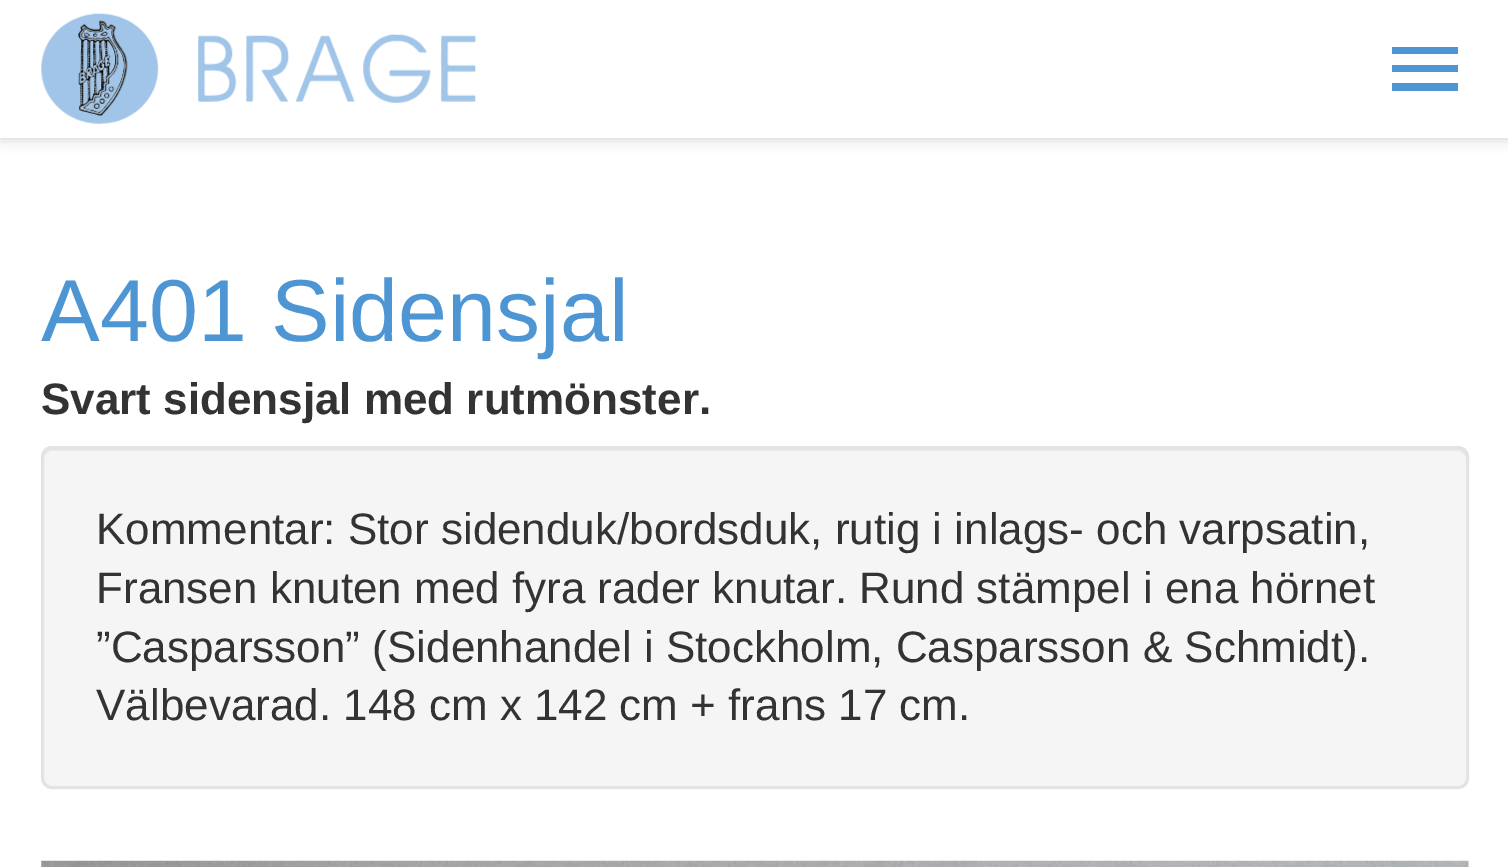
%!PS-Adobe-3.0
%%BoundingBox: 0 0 1508 867
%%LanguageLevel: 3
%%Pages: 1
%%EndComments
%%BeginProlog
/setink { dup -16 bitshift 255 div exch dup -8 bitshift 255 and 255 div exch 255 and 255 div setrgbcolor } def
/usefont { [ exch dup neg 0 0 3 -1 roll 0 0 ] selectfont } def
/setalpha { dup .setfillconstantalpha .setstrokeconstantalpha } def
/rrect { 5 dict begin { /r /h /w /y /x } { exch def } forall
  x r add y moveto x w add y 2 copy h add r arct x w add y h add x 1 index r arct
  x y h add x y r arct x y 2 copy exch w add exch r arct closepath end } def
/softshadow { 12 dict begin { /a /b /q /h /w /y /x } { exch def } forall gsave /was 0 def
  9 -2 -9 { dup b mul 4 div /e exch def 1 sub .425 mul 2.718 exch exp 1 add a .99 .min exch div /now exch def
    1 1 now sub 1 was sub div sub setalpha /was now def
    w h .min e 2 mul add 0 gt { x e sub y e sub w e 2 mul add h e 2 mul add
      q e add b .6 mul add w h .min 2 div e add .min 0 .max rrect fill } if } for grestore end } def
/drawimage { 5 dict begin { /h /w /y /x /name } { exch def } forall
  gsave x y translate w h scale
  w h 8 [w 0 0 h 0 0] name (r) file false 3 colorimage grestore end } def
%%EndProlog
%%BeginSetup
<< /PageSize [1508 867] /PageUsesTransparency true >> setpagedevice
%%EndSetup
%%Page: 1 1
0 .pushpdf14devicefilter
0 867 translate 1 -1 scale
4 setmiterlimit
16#FFFFFF setink
0 0 1508 867 rectfill
16#000000 setink
0 0 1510 138 0 7 0.2 softshadow
16#FFFFFF setink
0 0 1508 138 rectfill
(img1.raw) 41 13 436 111 drawimage
16#4E95D4 setink
1392 47 moveto 1458 47 lineto 1458 54 lineto 1392 54 lineto closepath 1392 72 moveto 1392 65 lineto 1458 65 lineto 1458 72 lineto closepath 1392 91 moveto 1392 83 lineto 1458 83 lineto 1458 91 lineto closepath fill
/Arimo-Regular 88 usefont
41 341 moveto (A401 Sidensjal) show
/Arimo-Bold 44 usefont
16#333333 setink
41 414 moveto (Svart sidensjal med rutmönster.) show
16#F5F5F5 setink
41 446 1428 343 11 rrect fill
16#E9E9E9 setink
52 451 moveto 1458 451 lineto 1462 451 1466 455 1466 459 curveto 1466 456 lineto 1466 452 1462 448 1458 448 curveto 52 448 lineto 48 448 44 452 44 456 curveto 44 459 lineto 44 455 48 451 52 451 curveto closepath fill
16#E3E3E3 setink
3 setlinewidth
42.5 447.5 1425 340 9.5 rrect stroke
/Arimo-Regular 44 usefont
16#333333 setink
[
    [(Kommentar: Stor sidenduk/bordsduk, rutig i inlags- och varpsatin,) 96 544]
    [(Fransen knuten med fyra rader knutar. Rund stämpel i ena hörnet) 96 603]
    [(”Casparsson” \(Sidenhandel i Stockholm, Casparsson & Schmidt\).) 96 662]
    [(Välbevarad. 148 cm x 142 cm + frans 17 cm.) 96 720]
] { aload pop moveto show } forall
(img2.raw) 41 860 1428 7 drawimage
.poppdf14devicefilter showpage
%%EOF
